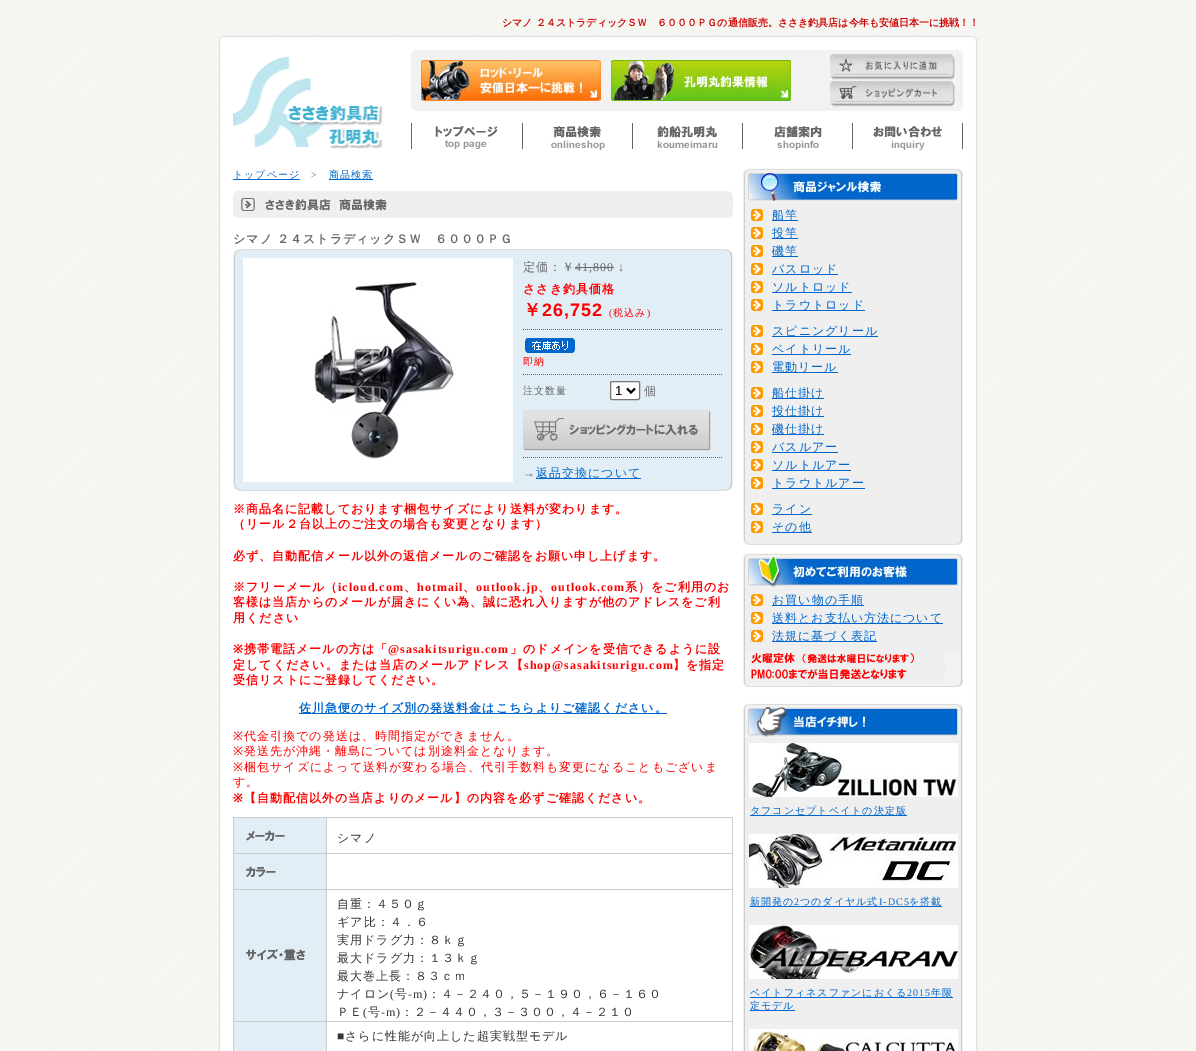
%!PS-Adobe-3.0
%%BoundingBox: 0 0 1196 1051
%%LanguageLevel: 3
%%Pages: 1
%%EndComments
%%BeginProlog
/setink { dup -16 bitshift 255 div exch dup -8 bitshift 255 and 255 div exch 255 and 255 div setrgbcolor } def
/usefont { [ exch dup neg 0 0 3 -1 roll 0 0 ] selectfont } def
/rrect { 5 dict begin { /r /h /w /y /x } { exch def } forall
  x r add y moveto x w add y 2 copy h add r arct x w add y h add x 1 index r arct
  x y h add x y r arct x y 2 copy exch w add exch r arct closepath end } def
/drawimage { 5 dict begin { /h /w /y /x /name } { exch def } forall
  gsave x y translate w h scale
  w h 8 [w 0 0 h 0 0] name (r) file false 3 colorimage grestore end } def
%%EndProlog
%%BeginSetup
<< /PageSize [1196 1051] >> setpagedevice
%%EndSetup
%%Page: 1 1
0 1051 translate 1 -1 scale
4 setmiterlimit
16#FFFFFF setink
0 0 1196 1051 rectfill
(img1.raw) 0 0 1196 1051 drawimage
/WenQuanYiZenHei-Bold 10 usefont
16#CC0000 setink
502 26 moveto (シマノ ２４ストラディックＳＷ　６０００ＰＧの通信販売。ささき釣具店は今年も安値日本一に挑戦！！) show
(img2.raw) 218 35 760 15 drawimage
(img3.raw) 218 50 760 100 drawimage
(img4.raw) 233 57 150 92 drawimage
(img5.raw) 411 50 552 61 drawimage
(img6.raw) 421 60 180 41 drawimage
(img7.raw) 611 60 180 41 drawimage
(img8.raw) 830 54 125 26 drawimage
(img9.raw) 830 81 125 26 drawimage
16#666666 setink
411 123 1 26 rectfill
(img10.raw) 435 126 63 23 drawimage
522 123 1 26 rectfill
(img11.raw) 551 126 54 24 drawimage
632 123 1 26 rectfill
(img12.raw) 657 126 61 22 drawimage
742 123 1 26 rectfill
(img13.raw) 774 126 48 24 drawimage
852 123 1 26 rectfill
(img14.raw) 873 126 69 24 drawimage
962 123 1 26 rectfill
(img15.raw) 218 150 760 18 drawimage
(img16.raw) 218 168 760 883 drawimage
16#0066CC setink
233 179 67 1 rectfill
/WenQuanYiZenHei-Medium 10 usefont
233 178 moveto 1 0 (トップページ) ashow
/LiberationSerif-Regular 10 usefont
16#666666 setink
311 178 moveto 1 0 (>) ashow
16#0066CC setink
329 179 44 1 rectfill
/WenQuanYiZenHei-Medium 10 usefont
329 178 moveto 1 0 (商品検索) ashow
(img17.raw) 233 191 500 27 drawimage
/WenQuanYiZenHei-Bold 12 usefont
16#666666 setink
233 243 moveto 1 0 (シマノ) ashow
277 243 moveto 1 0 (２４ストラディックＳＷ　６０００ＰＧ) ashow
(img18.raw) 233 249 500 9 drawimage
(img19.raw) 233 258 500 224 drawimage
16#FFFFFF setink
243 258 270 224 rectfill
(img20.raw) 313 279 143 180 drawimage
/WenQuanYiZenHei-Medium 12 usefont
16#666666 setink
523 271 moveto 1 0 (定価：￥) ashow
/LiberationSerif-Regular 12 usefont
575 271 moveto 1 0 (41,800 ↓) ashow
575 267 39 1 rectfill
/WenQuanYiZenHei-Bold 12 usefont
16#FF0000 setink
523 293 moveto 1 0 (ささき釣具価格) ashow
/WenQuanYiZenHei-Bold 18 usefont
523 316 moveto 1 0 (￥) ashow
/LiberationSans-Bold 18 usefont
542 316 moveto 1 0 (26,752) ashow
/LiberationSerif-Regular 10 usefont
609 316 moveto 1 0 (\() ashow
/WenQuanYiZenHei-Medium 10 usefont
613 316 moveto 1 0 (税込み) ashow
/LiberationSerif-Regular 10 usefont
647 316 moveto 1 0 (\)) ashow
(img21.raw) 523 329 199 1 drawimage
(img22.raw) 525 338 50 15 drawimage
/WenQuanYiZenHei-Medium 10 usefont
523 365 moveto 1 0 (即納) ashow
(img21.raw) 523 374 199 1 drawimage
16#666666 setink
523 394 moveto 1 0 (注文数量) ashow
16#FFFFFF setink
610.5 381.5 29 18 1.5 rrect gsave fill grestore
16#767676 setink
stroke
16#000000 setink
2 setlinewidth
627 388.5 moveto 631 392.5 lineto 635 388.5 lineto stroke
/LiberationSans-Regular 13 usefont
615 395 moveto (1) show
/WenQuanYiZenHei-Medium 12 usefont
16#666666 setink
644 395 moveto 1 0 (個) ashow
(img23.raw) 523 410 188 41 drawimage
(img21.raw) 523 457 199 1 drawimage
/LiberationSerif-Regular 12 usefont
523 477 moveto 1 0 (→) ashow
16#0066CC setink
536 478 105 1 rectfill
/WenQuanYiZenHei-Medium 12 usefont
536 477 moveto 1 0 (返品交換について) ashow
(img24.raw) 233 482 500 9 drawimage
/WenQuanYiZenHei-Bold 12 usefont
16#FF0000 setink
233 513 moveto 1 0 (※商品名に記載しております梱包サイズにより送料が変わります。) ashow
233 528 moveto 1 0 (（リール２台以上のご注文の場合も変更となります）) ashow
233 560 moveto 1 0 (必ず、自動配信メール以外の返信メールのご確認をお願い申し上げます。) ashow
233 591 moveto 1 0 (※フリーメール（) ashow
/LiberationSerif-Bold 12 usefont
338 591 moveto 1 0 (icloud.com) ashow
/WenQuanYiZenHei-Bold 12 usefont
404 591 moveto 1 0 (、) ashow
/LiberationSerif-Bold 12 usefont
417 591 moveto 1 0 (hotmail) ashow
/WenQuanYiZenHei-Bold 12 usefont
463 591 moveto 1 0 (、) ashow
/LiberationSerif-Bold 12 usefont
476 591 moveto 1 0 (outlook.jp) ashow
/WenQuanYiZenHei-Bold 12 usefont
538 591 moveto 1 0 (、) ashow
/LiberationSerif-Bold 12 usefont
551 591 moveto 1 0 (outlook.com) ashow
/WenQuanYiZenHei-Bold 12 usefont
625 591 moveto 1 0 (系）をご利用のお) ashow
233 606 moveto 1 0 (客様は当店からのメールが届きにくい為、誠に恐れ入りますが他のアドレスをご利) ashow
233 622 moveto 1 0 (用ください) ashow
/NotoSans-Bold 12 usefont
233 653 moveto 1 0 (※) ashow
/WenQuanYiZenHei-Bold 12 usefont
244 653 moveto 1 0 (携帯電話メールの方は「) ashow
/LiberationSerif-Bold 12 usefont
388 653 moveto 1 0 (@sasakitsurigu.com) ashow
/WenQuanYiZenHei-Bold 12 usefont
510 653 moveto 1 0 (」のドメインを受信できるように設) ashow
233 669 moveto 1 0 (定してください。または当店のメールアドレス【) ashow
/LiberationSerif-Bold 12 usefont
524 669 moveto 1 0 (shop@sasakitsurigu.com) ashow
/WenQuanYiZenHei-Bold 12 usefont
673 669 moveto 1 0 (】を指定) ashow
233 684 moveto 1 0 (受信リストにご登録してください。) ashow
16#0066CC setink
299 713 368 1 rectfill
299 712 moveto 1 0 (佐川急便のサイズ別の発送料金はこちらよりご確認ください。) ashow
/NotoSans-Regular 12 usefont
16#FF0000 setink
233 740 moveto 1 0 (※) ashow
/WenQuanYiZenHei-Medium 12 usefont
244 740 moveto 1 0 (代金引換での発送は、時間指定ができません。) ashow
/NotoSans-Regular 12 usefont
233 755 moveto 1 0 (※) ashow
/WenQuanYiZenHei-Medium 12 usefont
244 755 moveto 1 0 (発送先が沖縄・離島については別途料金となります。) ashow
/NotoSans-Regular 12 usefont
233 771 moveto 1 0 (※) ashow
/WenQuanYiZenHei-Medium 12 usefont
244 771 moveto 1 0 (梱包サイズによって送料が変わる場合、代引手数料も変更になることもございま) ashow
233 786 moveto 1 0 (す。) ashow
/NotoSans-Bold 12 usefont
233 802 moveto 1 0 (※) ashow
/WenQuanYiZenHei-Bold 12 usefont
244 802 moveto 1 0 (【自動配信以外の当店よりのメール】の内容を必ずご確認ください。) ashow
[
    [233 817 500 1 16#CCCCCC]
    [732 817 1 234 16#CCCCCC]
    [233 817 1 234 16#CCCCCC]
    [234 818 92 35 16#E1EEF6]
] { aload pop setink rectfill } forall
(img25.raw) 246 830 39 11 drawimage
[
    [326 853 407 1 16#CCCCCC]
    [326 889 407 1 16#CCCCCC]
    [326 1021 407 1 16#CCCCCC]
    [326 1021 1 30 16#CCCCCC]
    [233 1021 94 1 16#CCCCCC]
    [326 889 1 133 16#CCCCCC]
    [233 889 94 1 16#CCCCCC]
    [326 853 1 37 16#CCCCCC]
    [233 853 94 1 16#CCCCCC]
    [326 817 1 37 16#CCCCCC]
] { aload pop setink rectfill } forall
/WenQuanYiZenHei-Medium 12 usefont
16#333333 setink
337 842 moveto 1 0 (シマノ) ashow
16#E1EEF6 setink
234 854 92 35 rectfill
(img26.raw) 246 866 30 11 drawimage
234 890 92 131 rectfill
(img27.raw) 246 949 60 12 drawimage
16#333333 setink
337 908 moveto 1 0 (自重：４５０ｇ) ashow
337 926 moveto 1 0 (ギア比：４．６) ashow
337 944 moveto 1 0 (実用ドラグ力：８ｋｇ) ashow
337 962 moveto 1 0 (最大ドラグ力：１３ｋｇ) ashow
337 980 moveto 1 0 (最大巻上長：８３ｃｍ) ashow
337 998 moveto 1 0 (ナイロン) ashow
/LiberationSerif-Regular 12 usefont
390 998 moveto 1 0 (\() ashow
/WenQuanYiZenHei-Medium 12 usefont
395 998 moveto 1 0 (号) ashow
/LiberationSerif-Regular 12 usefont
408 998 moveto 1 0 (-m\)) ashow
/WenQuanYiZenHei-Medium 12 usefont
428 998 moveto 1 0 (：４－２４０，５－１９０，６－１６０) ashow
337 1016 moveto 1 0 (ＰＥ) ashow
/LiberationSerif-Regular 12 usefont
363 1016 moveto 1 0 (\() ashow
/WenQuanYiZenHei-Medium 12 usefont
368 1016 moveto 1 0 (号) ashow
/LiberationSerif-Regular 12 usefont
381 1016 moveto 1 0 (-m\)) ashow
/WenQuanYiZenHei-Medium 12 usefont
401 1016 moveto 1 0 (：２－４４０，３－３００，４－２１０) ashow
16#E1EEF6 setink
234 1022 92 29 rectfill
/LiberationSerif-Regular 12 usefont
16#333333 setink
337 1040 moveto 1 0 (■) ashow
/WenQuanYiZenHei-Medium 12 usefont
345 1040 moveto 1 0 (さらに性能が向上した超実戦型モデル) ashow
(img28.raw) 743 168 220 35 drawimage
(img29.raw) 743 203 220 3 drawimage
(img30.raw) 743 206 220 18 drawimage
16#0066CC setink
772 220 26 1 rectfill
772 219 moveto 1 0 (船竿) ashow
(img30.raw) 743 224 220 18 drawimage
772 238 26 1 rectfill
772 237 moveto 1 0 (投竿) ashow
(img30.raw) 743 242 220 18 drawimage
772 256 26 1 rectfill
772 255 moveto 1 0 (磯竿) ashow
(img30.raw) 743 260 220 18 drawimage
772 274 66 1 rectfill
772 273 moveto 1 0 (バスロッド) ashow
(img30.raw) 743 278 220 18 drawimage
772 292 80 1 rectfill
772 291 moveto 1 0 (ソルトロッド) ashow
(img30.raw) 743 296 220 18 drawimage
772 310 93 1 rectfill
772 309 moveto 1 0 (トラウトロッド) ashow
(img31.raw) 743 314 220 8 drawimage
(img30.raw) 743 322 220 18 drawimage
772 336 106 1 rectfill
772 335 moveto 1 0 (スピニングリール) ashow
(img30.raw) 743 340 220 18 drawimage
772 354 79 1 rectfill
772 353 moveto 1 0 (ベイトリール) ashow
(img30.raw) 743 358 220 18 drawimage
772 372 66 1 rectfill
772 371 moveto 1 0 (電動リール) ashow
(img31.raw) 743 376 220 8 drawimage
(img30.raw) 743 384 220 18 drawimage
772 398 52 1 rectfill
772 397 moveto 1 0 (船仕掛け) ashow
(img30.raw) 743 402 220 18 drawimage
772 416 52 1 rectfill
772 415 moveto 1 0 (投仕掛け) ashow
(img30.raw) 743 420 220 18 drawimage
772 434 52 1 rectfill
772 433 moveto 1 0 (磯仕掛け) ashow
(img30.raw) 743 438 220 18 drawimage
772 451 moveto 1 0 (バスルアー) ashow
772 452 66 1 rectfill
(img30.raw) 743 456 220 18 drawimage
772 470 79 1 rectfill
772 469 moveto 1 0 (ソルトルアー) ashow
(img30.raw) 743 474 220 18 drawimage
772 488 93 1 rectfill
772 487 moveto 1 0 (トラウトルアー) ashow
(img31.raw) 743 492 220 8 drawimage
(img30.raw) 743 500 220 18 drawimage
772 514 40 1 rectfill
772 513 moveto 1 0 (ライン) ashow
(img30.raw) 743 518 220 18 drawimage
772 532 40 1 rectfill
772 531 moveto 1 0 (その他) ashow
(img32.raw) 743 536 220 9 drawimage
(img33.raw) 743 553 220 35 drawimage
(img29.raw) 743 588 220 3 drawimage
(img30.raw) 743 591 220 18 drawimage
772 605 92 1 rectfill
772 604 moveto 1 0 (お買い物の手順) ashow
(img30.raw) 743 609 220 18 drawimage
772 623 171 1 rectfill
772 622 moveto 1 0 (送料とお支払い方法について) ashow
(img30.raw) 743 627 220 18 drawimage
772 641 105 1 rectfill
772 640 moveto 1 0 (法規に基づく表記) ashow
(img31.raw) 743 645 220 8 drawimage
(img34.raw) 743 653 220 34 drawimage
(img35.raw) 743 703 220 35 drawimage
(img29.raw) 743 738 220 3 drawimage
(img36.raw) 743 741 220 2 drawimage
(img37.raw) 743 743 220 54 drawimage
(img38.raw) 749 743 209 54 drawimage
(img39.raw) 743 797 220 27 drawimage
750 815 157 1 rectfill
/WenQuanYiZenHei-Medium 10 usefont
750 814 moveto 1 0 (タフコンセプトベイトの決定版) ashow
(img40.raw) 743 824 220 10 drawimage
(img37.raw) 743 834 220 54 drawimage
(img41.raw) 749 834 209 54 drawimage
(img39.raw) 743 888 220 27 drawimage
750 906 192 1 rectfill
750 905 moveto 1 0 (新開発の) ashow
/LiberationSerif-Regular 10 usefont
794 905 moveto 1 0 (2) ashow
/WenQuanYiZenHei-Medium 10 usefont
800 905 moveto 1 0 (つのダイヤル式) ashow
/LiberationSerif-Regular 10 usefont
879 905 moveto 1 0 (I-DC5) ashow
/WenQuanYiZenHei-Medium 10 usefont
909 905 moveto 1 0 (を搭載) ashow
(img40.raw) 743 915 220 10 drawimage
(img37.raw) 743 925 220 54 drawimage
(img42.raw) 749 925 209 54 drawimage
(img43.raw) 743 979 220 40 drawimage
750 997 203 1 rectfill
750 996 moveto 1 0 (ベイトフィネスファンにおくる) ashow
/LiberationSerif-Regular 10 usefont
907 996 moveto 1 0 (2015) ashow
/WenQuanYiZenHei-Medium 10 usefont
931 996 moveto 1 0 (年限) ashow
750 1010 45 1 rectfill
750 1009 moveto 1 0 (定モデル) ashow
(img40.raw) 743 1019 220 10 drawimage
(img44.raw) 743 1029 220 22 drawimage
(img45.raw) 749 1029 209 22 drawimage
showpage
%%EOF
